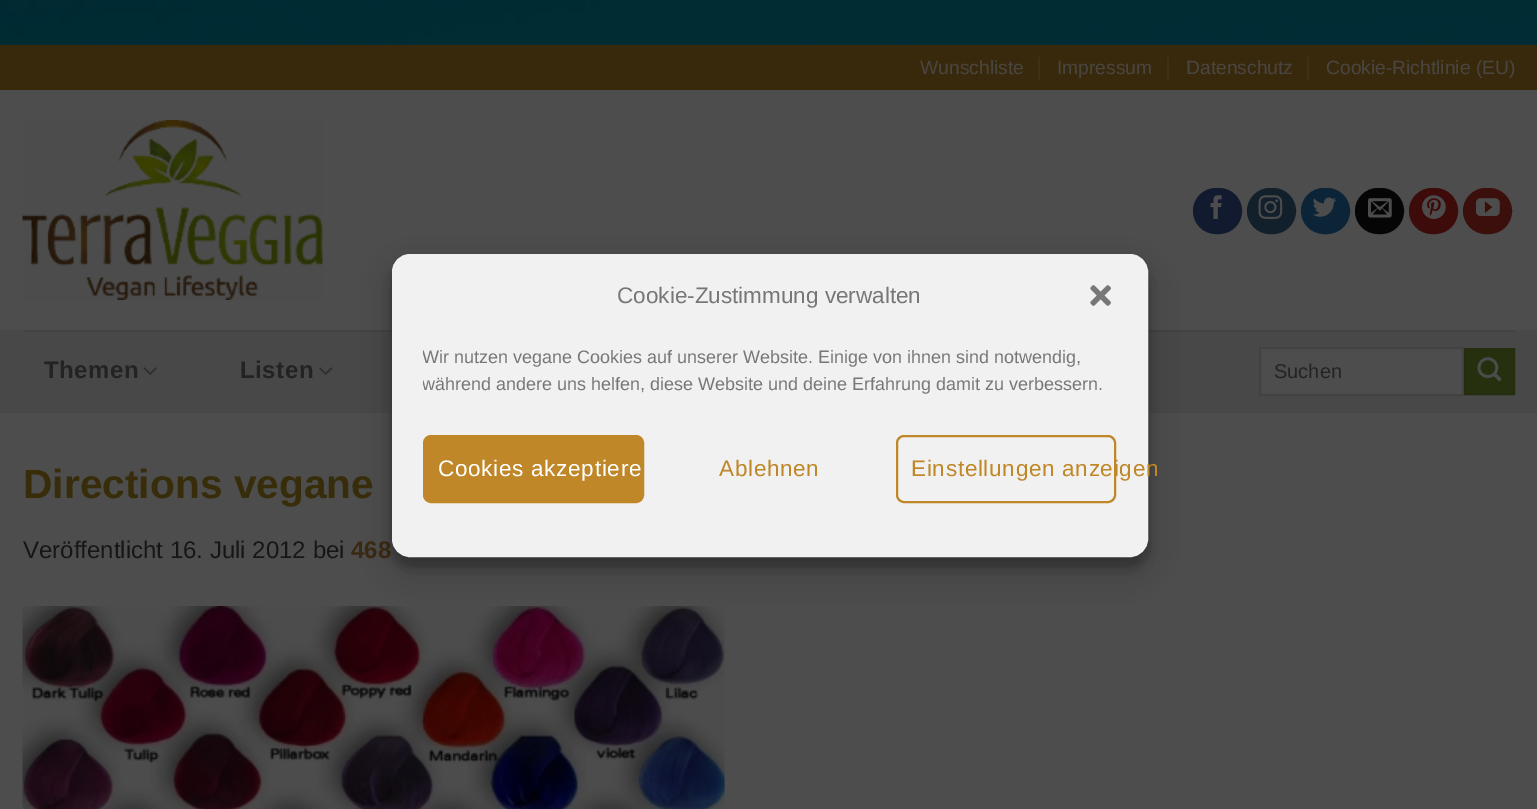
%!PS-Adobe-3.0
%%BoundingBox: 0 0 1537 809
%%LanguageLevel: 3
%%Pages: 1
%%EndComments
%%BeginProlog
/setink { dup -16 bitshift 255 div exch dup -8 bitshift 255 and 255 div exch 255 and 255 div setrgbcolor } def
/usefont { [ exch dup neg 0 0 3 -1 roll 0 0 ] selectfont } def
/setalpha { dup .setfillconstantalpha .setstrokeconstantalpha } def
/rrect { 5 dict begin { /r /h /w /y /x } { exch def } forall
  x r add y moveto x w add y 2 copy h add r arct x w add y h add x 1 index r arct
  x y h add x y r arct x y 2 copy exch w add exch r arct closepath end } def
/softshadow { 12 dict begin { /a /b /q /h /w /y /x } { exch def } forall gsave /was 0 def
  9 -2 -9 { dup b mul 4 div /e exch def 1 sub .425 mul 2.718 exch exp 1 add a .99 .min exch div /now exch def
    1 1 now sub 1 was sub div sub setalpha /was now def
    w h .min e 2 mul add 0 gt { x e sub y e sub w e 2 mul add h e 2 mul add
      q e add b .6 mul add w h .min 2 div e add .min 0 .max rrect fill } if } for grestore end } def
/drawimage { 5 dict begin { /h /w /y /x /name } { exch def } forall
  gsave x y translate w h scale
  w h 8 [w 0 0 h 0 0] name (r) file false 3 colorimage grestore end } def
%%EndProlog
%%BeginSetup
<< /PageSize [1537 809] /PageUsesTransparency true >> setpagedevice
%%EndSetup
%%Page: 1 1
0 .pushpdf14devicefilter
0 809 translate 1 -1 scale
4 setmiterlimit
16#FFFFFF setink
0 0 1537 809 rectfill
(img1.raw) 0 0 1537 45 drawimage
16#000000 setink
0 50 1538 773 0 4.5 0.23 softshadow
16#4D4D4D setink
0 90 1537 719 rectfill
16#39290C setink
0 45 1537 45 rectfill
/LiberationSans-Regular 19.25 usefont
16#494540 setink
920 74 moveto (Wunschliste) show
16#3D3019 setink
1038 57 2 23 rectfill
16#494540 setink
1057 74 moveto (Impressum) show
16#3D3019 setink
1167 57 2 23 rectfill
16#494540 setink
1186 74 moveto (Datenschutz) show
16#3D3019 setink
1307 57 2 23 rectfill
16#494540 setink
1326 74 moveto (Cookie-Richtlinie \(EU\)) show
(img2.raw) 22 120 301 180 drawimage
16#111A2F setink
1194 189 47 44 22 rrect gsave fill grestore
2 setlinewidth
stroke
(img3.raw) 1210 195 12 24 drawimage
16#12202C setink
1248 189 47 44 22 rrect gsave fill grestore
stroke
(img4.raw) 1258 195 25 24 drawimage
16#0B2438 setink
1302 189 47 44 22 rrect gsave fill grestore
stroke
(img5.raw) 1312 197 25 20 drawimage
16#050505 setink
1356 189 47 44 22 rrect gsave fill grestore
stroke
(img6.raw) 1368 198 24 20 drawimage
16#3D0B0A setink
1410 189 47 44 22 rrect gsave fill grestore
stroke
(img7.raw) 1422 195 24 24 drawimage
16#3B0F0B setink
1464 189 47 44 22 rrect gsave fill grestore
stroke
(img8.raw) 1476 198 24 18 drawimage
16#484848 setink
0 330 1537 83 rectfill
16#434343 setink
23 330 1492 2 rectfill
/LiberationSans-Bold 24 usefont
16#232323 setink
44 378 moveto 0.5 0 (Themen) ashow
(img9.raw) 143 367 14 8 drawimage
240 378 moveto 0.5 0 (Listen) ashow
(img10.raw) 319 367 14 8 drawimage
16#4D4D4D setink
1260 348 moveto 1463 348 lineto 1463 395 lineto 1260 395 lineto closepath gsave fill grestore
16#424242 setink
stroke
/LiberationSans-Regular 20 usefont
16#232323 setink
1274 378 moveto (Suchen) show
16#26300F setink
1465 349 moveto 1514 349 lineto 1514 394 lineto 1465 394 lineto closepath gsave fill grestore
16#242D0E setink
stroke
(img11.raw) 1477 357 25 24 drawimage
/LiberationSans-Bold 40.75 usefont
16#372D0A setink
23 498 moveto (Directions vegane) show
/LiberationSans-Regular 24 usefont
16#161616 setink
23 558 moveto (Veröffentlicht 16. Juli 2012 bei) show
/LiberationSans-Bold 24 usefont
16#3B2810 setink
351 558 moveto (468) show
(img12.raw) 22 606 703 203 drawimage
16#000000 setink
392 263 756 303 18 4.5 0.23 softshadow
392 269 756 303 18 15 0.19 softshadow
16#F1F1F1 setink
393 255 754 301 17 rrect gsave fill grestore
stroke
/LiberationSans-Regular 22.5 usefont
16#777777 setink
617 303 moveto (Cookie-Zustimmung verwalten) show
(img13.raw) 1090 285 21 21 drawimage
gsave
423 344 693 61 rectclip
/LiberationSans-Regular 18 usefont
422 363 moveto (Wir nutzen vegane Cookies auf unserer Website. Einige von ihnen sind notwendig,) show
422 390 moveto (während andere uns helfen, diese Website und deine Erfahrung damit zu verbessern.) show
grestore
16#BF8727 setink
424 436 219 66 7 rrect gsave fill grestore
stroke
16#FFFFFF setink
438 476 moveto 0.7 0 (Cookies akzeptiere) ashow
16#BF8727 setink
719 476 moveto 0.7 0 (Ablehnen) ashow
897 436 218 66 7 rrect stroke
911 476 moveto 0.7 0 (Einstellungen anzeigen) ashow
.poppdf14devicefilter showpage
%%EOF
